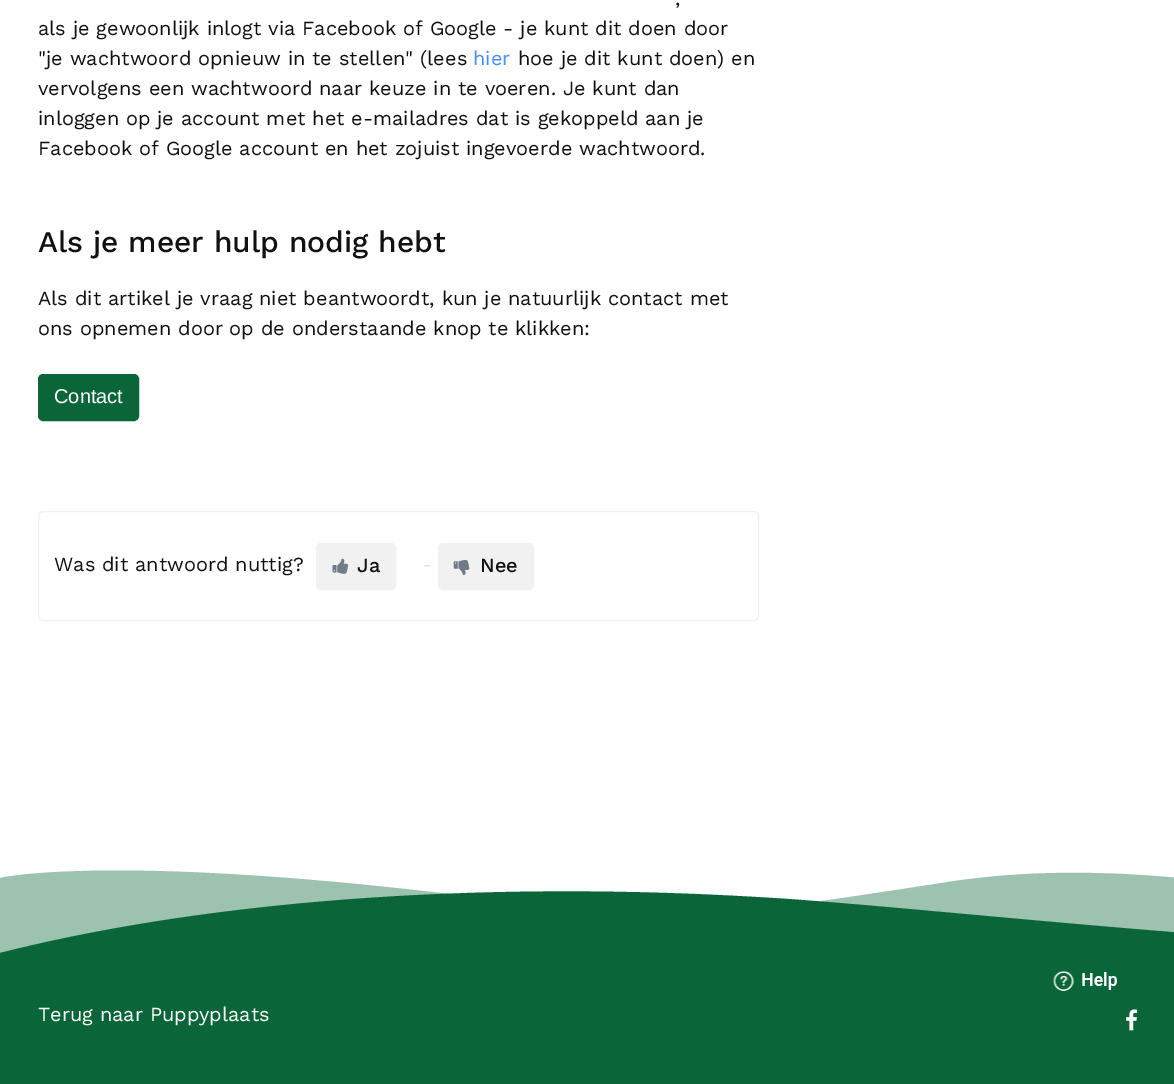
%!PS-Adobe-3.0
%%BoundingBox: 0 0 1174 1084
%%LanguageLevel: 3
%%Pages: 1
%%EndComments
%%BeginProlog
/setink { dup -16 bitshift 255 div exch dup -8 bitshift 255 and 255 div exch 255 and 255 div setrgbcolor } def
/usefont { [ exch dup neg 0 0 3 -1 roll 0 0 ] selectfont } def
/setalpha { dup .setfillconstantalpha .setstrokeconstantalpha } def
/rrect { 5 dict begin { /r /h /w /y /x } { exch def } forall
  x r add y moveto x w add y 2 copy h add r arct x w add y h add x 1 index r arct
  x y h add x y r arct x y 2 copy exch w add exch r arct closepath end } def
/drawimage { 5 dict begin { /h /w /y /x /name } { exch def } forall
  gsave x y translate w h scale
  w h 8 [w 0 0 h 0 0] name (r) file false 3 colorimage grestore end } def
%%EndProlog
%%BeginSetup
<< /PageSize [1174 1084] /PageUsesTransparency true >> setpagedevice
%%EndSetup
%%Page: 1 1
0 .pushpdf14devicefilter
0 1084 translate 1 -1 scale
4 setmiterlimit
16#FFFFFF setink
0 0 1174 1084 rectfill
/WorkSans-Regular 20 usefont
16#111111 setink
[
    [(,) 675 5]
    [(als je gewoonlijk inlogt via Facebook of Google - je kunt dit doen door) 38 35]
    [("je wachtwoord opnieuw in te stellen" \(lees) 38 65]
] { aload pop moveto show } forall
16#458FFF setink
473 65 moveto (hier) show
16#111111 setink
[
    [(hoe je dit kunt doen\) en) 518 65]
    [(vervolgens een wachtwoord naar keuze in te voeren. Je kunt dan) 38 95]
    [(inloggen op je account met het e-mailadres dat is gekoppeld aan je) 38 125]
    [(Facebook of Google account en het zojuist ingevoerde wachtwoord.) 38 155]
] { aload pop moveto show } forall
/WorkSans-Medium 30 usefont
38 252 moveto (Als je meer hulp nodig hebt) show
/WorkSans-Regular 20 usefont
38 305 moveto (Als dit artikel je vraag niet beantwoordt, kun je natuurlijk contact met) show
38 335 moveto (ons opnemen door op de onderstaande knop te klikken:) show
16#0A6638 setink
38.5 374.5 100 46 4.5 rrect gsave fill grestore
stroke
/LiberationSans-Regular 20 usefont
16#FFFFFF setink
54 403 moveto (Contact) show
16#F1F1F1 setink
38.5 511.5 720 109 4.5 rrect stroke
/WorkSans-Regular 20 usefont
16#111111 setink
54 571 moveto (Was dit antwoord nuttig?) show
16#F1F1F1 setink
316.5 543.5 79 46 4.5 rrect gsave fill grestore
stroke
(img1.raw) 332 558 17 16 drawimage
/WorkSans-Medium 20 usefont
16#111111 setink
357 572 moveto (Ja) show
/WorkSans-Regular 20 usefont
16#E5E5E5 setink
422 571 moveto (-) show
16#F1F1F1 setink
438.5 543.5 95 46 4.5 rrect gsave fill grestore
stroke
(img2.raw) 453 560 17 15 drawimage
/WorkSans-Medium 20 usefont
16#111111 setink
480 572 moveto (Nee) show
16#0A6638 setink
0 976 1174 108 rectfill
gsave
0 851 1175 125 rectclip
0.4 setalpha
-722 944 moveto -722 944 -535 992 -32 969 curveto 472 947 634 931 948 882 curveto 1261 833 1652 996 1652 996 curveto 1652 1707 lineto -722 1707 lineto closepath fill
0 878 moveto 0 878 152 842 691 928 curveto 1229 1015 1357 874 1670 855 curveto 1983 836 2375 915 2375 915 curveto 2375 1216 lineto 0 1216 lineto closepath fill
1 setalpha
0 953 moveto 189 905 463 877 788 899 curveto 1113 922 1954 1035 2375 864 curveto 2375 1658 lineto 0 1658 lineto closepath fill
grestore
/WorkSans-Regular 20 usefont
16#FFFFFF setink
38 1021 moveto (Terug naar Puppyplaats) show
(img3.raw) 1126 1009 12 22 drawimage
(img4.raw) 1053 971 64 20 drawimage
.poppdf14devicefilter showpage
%%EOF
